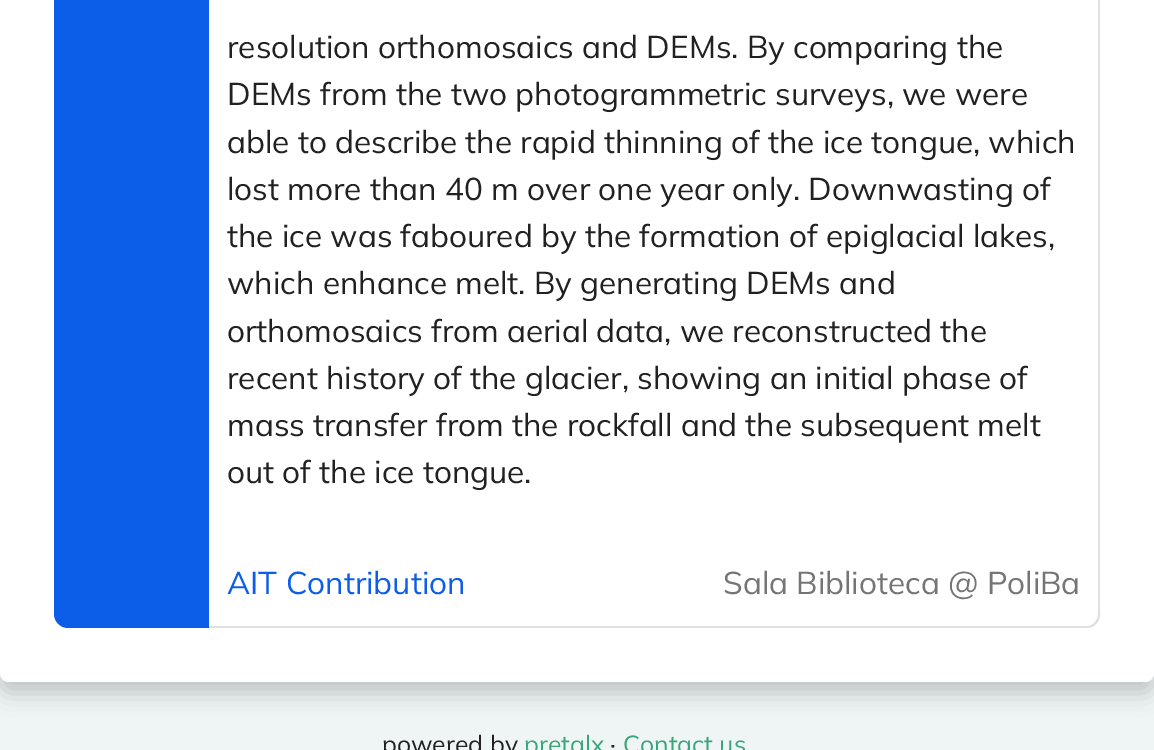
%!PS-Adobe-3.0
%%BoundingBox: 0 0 1154 750
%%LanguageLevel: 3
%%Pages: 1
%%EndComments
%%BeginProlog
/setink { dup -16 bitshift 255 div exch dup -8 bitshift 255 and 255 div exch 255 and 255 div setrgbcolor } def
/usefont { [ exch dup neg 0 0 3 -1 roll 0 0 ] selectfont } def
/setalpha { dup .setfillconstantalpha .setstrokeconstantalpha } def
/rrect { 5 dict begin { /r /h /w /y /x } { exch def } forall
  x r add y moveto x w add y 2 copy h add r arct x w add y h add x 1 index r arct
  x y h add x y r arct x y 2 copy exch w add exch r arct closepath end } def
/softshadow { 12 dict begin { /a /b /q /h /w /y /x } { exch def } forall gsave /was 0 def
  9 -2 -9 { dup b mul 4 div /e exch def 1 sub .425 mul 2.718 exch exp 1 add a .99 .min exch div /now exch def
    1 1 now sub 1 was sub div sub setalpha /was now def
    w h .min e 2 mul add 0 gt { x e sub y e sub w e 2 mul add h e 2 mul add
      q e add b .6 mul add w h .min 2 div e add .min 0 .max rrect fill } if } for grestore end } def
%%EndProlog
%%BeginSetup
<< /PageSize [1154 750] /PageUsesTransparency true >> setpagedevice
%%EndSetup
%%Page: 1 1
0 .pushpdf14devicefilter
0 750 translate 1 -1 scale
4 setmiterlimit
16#EFF5F4 setink
0 0 1154 750 rectfill
16#000000 setink
0 -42 1154 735 9 11 0.2 softshadow
16#FFFFFF setink
0 -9 1154 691 9 rrect fill
16#0C5DE7 setink
68 -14 moveto 209 -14 lineto 209 628 lineto 68 628 lineto 60.5 628 54 621.5 54 614 curveto 54 0 lineto 54 -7.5 60.5 -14 68 -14 curveto closepath fill
16#E0E0E0 setink
209 -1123 moveto 1087 -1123 lineto 1094 -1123 1100 -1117 1100 -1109 curveto 1100 614 lineto 1100 622 1094 628 1087 628 curveto 209 628 lineto closepath 209 -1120 moveto 1087 -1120 lineto 1093 -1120 1098 -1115 1098 -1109 curveto 1098 614 lineto 1098 620 1093 626 1087 626 curveto 209 626 lineto closepath eofill
/Mulish-ExtraLight 31.5 usefont
16#212121 setink
[
    [(resolution orthomosaics and DEMs. By comparing the) 227 58]
    [(DEMs from the two photogrammetric surveys, we were) 227 105]
    [(able to describe the rapid thinning of the ice tongue, which) 227 153]
    [(lost more than 40 m over one year only. Downwasting of) 227 200]
    [(the ice was faboured by the formation of epiglacial lakes,) 227 247]
    [(which enhance melt. By generating DEMs and) 227 294]
    [(orthomosaics from aerial data, we reconstructed the) 227 342]
    [(recent history of the glacier, showing an initial phase of) 227 389]
    [(mass transfer from the rockfall and the subsequent melt) 227 436]
    [(out of the ice tongue.) 227 483]
] { aload pop moveto show } forall
16#0C5DE7 setink
227 594 moveto (AIT Contribution) show
16#757575 setink
723 594 moveto (Sala Biblioteca @ PoliBa) show
/Mulish-ExtraLight 24.75 usefont
16#212121 setink
382 753 moveto (powered by) show
16#3AA57C setink
524 753 moveto (pretalx) show
16#212121 setink
610 753 moveto (·) show
16#3AA57C setink
623 753 moveto (Contact us) show
.poppdf14devicefilter showpage
%%EOF
